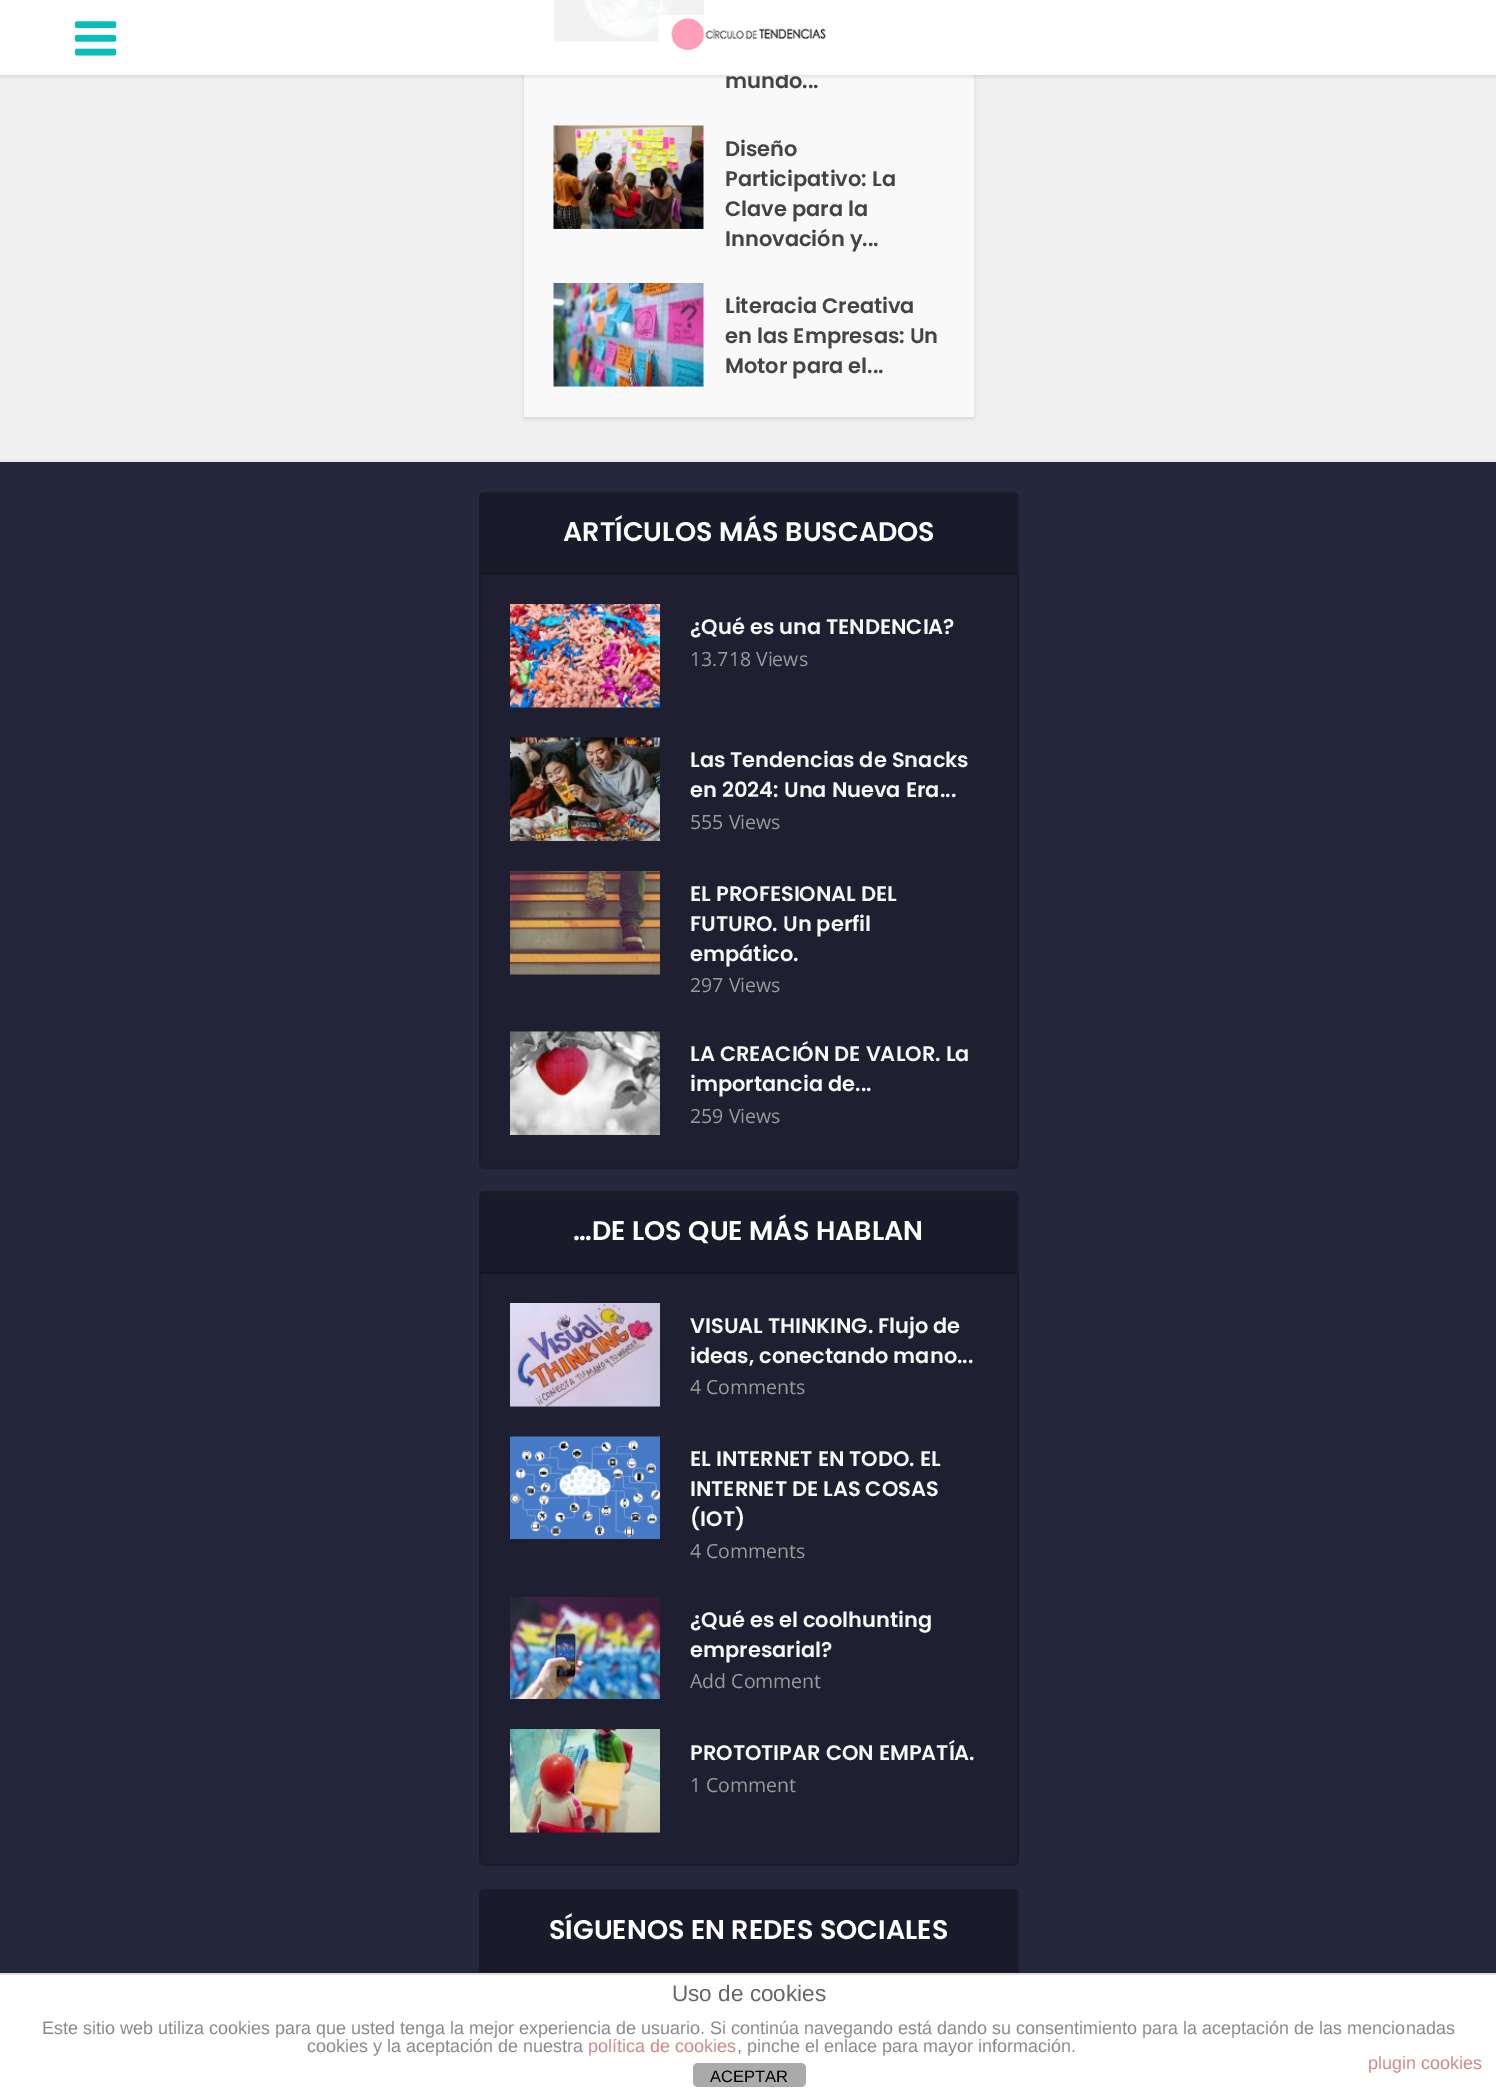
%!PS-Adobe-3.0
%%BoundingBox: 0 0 1496 2096
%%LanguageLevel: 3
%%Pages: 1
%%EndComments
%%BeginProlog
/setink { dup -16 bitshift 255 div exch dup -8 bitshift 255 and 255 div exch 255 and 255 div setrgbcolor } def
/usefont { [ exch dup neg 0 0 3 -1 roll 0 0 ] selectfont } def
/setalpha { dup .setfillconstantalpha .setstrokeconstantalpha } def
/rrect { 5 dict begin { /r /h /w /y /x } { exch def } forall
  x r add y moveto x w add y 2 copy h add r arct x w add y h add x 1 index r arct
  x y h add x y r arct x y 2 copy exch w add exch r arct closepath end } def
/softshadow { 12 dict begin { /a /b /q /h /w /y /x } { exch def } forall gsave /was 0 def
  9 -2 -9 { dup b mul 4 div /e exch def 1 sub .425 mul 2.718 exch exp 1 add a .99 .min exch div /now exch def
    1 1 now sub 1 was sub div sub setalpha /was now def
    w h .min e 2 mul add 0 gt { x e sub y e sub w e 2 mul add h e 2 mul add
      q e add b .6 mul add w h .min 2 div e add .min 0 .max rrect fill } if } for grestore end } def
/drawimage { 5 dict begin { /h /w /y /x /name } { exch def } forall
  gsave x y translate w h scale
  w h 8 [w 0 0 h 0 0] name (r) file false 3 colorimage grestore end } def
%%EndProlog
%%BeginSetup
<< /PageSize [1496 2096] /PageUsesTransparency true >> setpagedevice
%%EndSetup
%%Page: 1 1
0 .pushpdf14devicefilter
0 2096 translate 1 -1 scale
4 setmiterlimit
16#F0F0F0 setink
0 0 1496 2096 rectfill
16#000000 setink
524 -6 450 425 0 2 0.1 softshadow
16#F9F9F9 setink
524 0 450 417 rectfill
(img3.raw) 554 0 150 42 drawimage
gsave
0 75 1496 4 rectclip
16#000000 setink
0 2 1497 75 0 2 0.1 softshadow
grestore
/Poppins-SemiBold 21 usefont
16#444444 setink
725 88 moveto (mundo...) show
0.95 setalpha
16#FFFFFF setink
0 0 1496 75 rectfill
1 setalpha
(img1.raw) 75 21 42 35 drawimage
(img2.raw) 658 15 181 39 drawimage
(img4.raw) 553 125 151 104 drawimage
16#444444 setink
[
    [(Diseño) 725 156]
    [(Participativo: La) 725 186]
    [(Clave para la) 725 216]
    [(Innovación y...) 725 246]
] { aload pop moveto show } forall
(img5.raw) 553 283 151 104 drawimage
[
    [(Literacia Creativa) 725 313]
    [(en las Empresas: Un) 725 343]
    [(Motor para el...) 725 373]
] { aload pop moveto show } forall
16#000000 setink
0 465 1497 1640 0 3 0.2 softshadow
16#25283D setink
0 462 1496 1511 rectfill
16#1E2031 setink
479 492 540 677 6 rrect fill
0.1 setalpha
16#000000 setink
2 setlinewidth
480 493 538 675 5 rrect stroke
0.15 setalpha
480 494 537 81 rectfill
0.2 setalpha
480 573 537 2 rectfill
/Poppins-SemiBold 27 usefont
1 setalpha
16#FFFFFF setink
563 541 moveto (ARTÍCULOS MÁS BUSCADOS) show
(img6.raw) 510 604 150 104 drawimage
/Poppins-SemiBold 21 usefont
16#F9F9F9 setink
690 634 moveto (¿Qué es una TENDENCIA?) show
/OpenSans-Regular 19.5 usefont
16#9B9B9B setink
690 666 moveto (13.718 Views) show
(img7.raw) 510 737 150 104 drawimage
/Poppins-SemiBold 21 usefont
16#F9F9F9 setink
690 767 moveto (Las Tendencias de Snacks) show
690 797 moveto (en 2024: Una Nueva Era...) show
/OpenSans-Regular 19.5 usefont
16#9B9B9B setink
690 829 moveto (555 Views) show
(img8.raw) 510 871 150 104 drawimage
/Poppins-SemiBold 21 usefont
16#F9F9F9 setink
[
    [(EL PROFESIONAL DEL) 690 901]
    [(FUTURO. Un perfil) 690 931]
    [(empático.) 690 961]
] { aload pop moveto show } forall
/OpenSans-Regular 19.5 usefont
16#9B9B9B setink
690 992 moveto (297 Views) show
(img9.raw) 510 1031 150 104 drawimage
/Poppins-SemiBold 21 usefont
16#F9F9F9 setink
690 1061 moveto (LA CREACIÓN DE VALOR. La) show
690 1091 moveto (importancia de...) show
/OpenSans-Regular 19.5 usefont
16#9B9B9B setink
690 1123 moveto (259 Views) show
16#1E2031 setink
479 1191 540 675 6 rrect fill
0.1 setalpha
16#000000 setink
480 1192 538 673 5 rrect stroke
0.15 setalpha
480 1193 537 81 rectfill
0.2 setalpha
480 1272 537 2 rectfill
/Poppins-SemiBold 27 usefont
1 setalpha
16#FFFFFF setink
573 1240 moveto (…DE LOS QUE MÁS HABLAN) show
(img10.raw) 510 1303 150 104 drawimage
/Poppins-SemiBold 21 usefont
16#F9F9F9 setink
690 1333 moveto (VISUAL THINKING. Flujo de) show
690 1363 moveto (ideas, conectando mano...) show
/OpenSans-Regular 19.5 usefont
16#9B9B9B setink
690 1394 moveto (4 Comments) show
(img11.raw) 510 1436 150 103 drawimage
/Poppins-SemiBold 21 usefont
16#F9F9F9 setink
[
    [(EL INTERNET EN TODO. EL) 690 1466]
    [(INTERNET DE LAS COSAS) 690 1496]
    [(\(IOT\)) 690 1526]
] { aload pop moveto show } forall
/OpenSans-Regular 19.5 usefont
16#9B9B9B setink
690 1558 moveto (4 Comments) show
(img12.raw) 510 1597 150 102 drawimage
/Poppins-SemiBold 21 usefont
16#F9F9F9 setink
690 1627 moveto (¿Qué es el coolhunting) show
690 1657 moveto (empresarial?) show
/OpenSans-Regular 19.5 usefont
16#9B9B9B setink
690 1688 moveto (Add Comment) show
(img13.raw) 510 1729 150 104 drawimage
/Poppins-SemiBold 21 usefont
16#F9F9F9 setink
690 1760 moveto (PROTOTIPAR CON EMPATÍA.) show
/OpenSans-Regular 19.5 usefont
16#9B9B9B setink
690 1792 moveto (1 Comment) show
16#1E2031 setink
479 1889 540 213 6 rrect fill
0.1 setalpha
16#000000 setink
480 1890 538 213 5 rrect stroke
0.15 setalpha
480 1890 537 81 rectfill
0.2 setalpha
480 1970 537 2 rectfill
/Poppins-SemiBold 27 usefont
1 setalpha
16#FFFFFF setink
549 1939 moveto (SÍGUENOS EN REDES SOCIALES) show
0 1975 1496 121 rectfill
16#DDDDDD setink
0 1973 1496 2 rectfill
/LiberationSans-Regular 22.5 usefont
16#666666 setink
672 2001 moveto (Uso de cookies) show
/LiberationSans-Regular 18 usefont
16#888888 setink
42 2034 moveto (Este sitio web utiliza cookies para que usted tenga la mejor experiencia de usuario. Si continúa navegando está dando su consentimiento para la aceptación de las mencionadas) show
307 2052 moveto (cookies y la aceptación de nuestra) show
16#CC8888 setink
588 2052 moveto (política de cookies) show
16#888888 setink
737 2052 moveto (, pinche el enlace para mayor información.) show
16#CC8888 setink
1368 2069 moveto (plugin cookies) show
16#AAAAAA setink
693 2063 113 24 5 rrect fill
/LiberationSans-Regular 16.5 usefont
16#000000 setink
710 2082 moveto (ACEPTAR) show
.poppdf14devicefilter showpage
%%EOF
